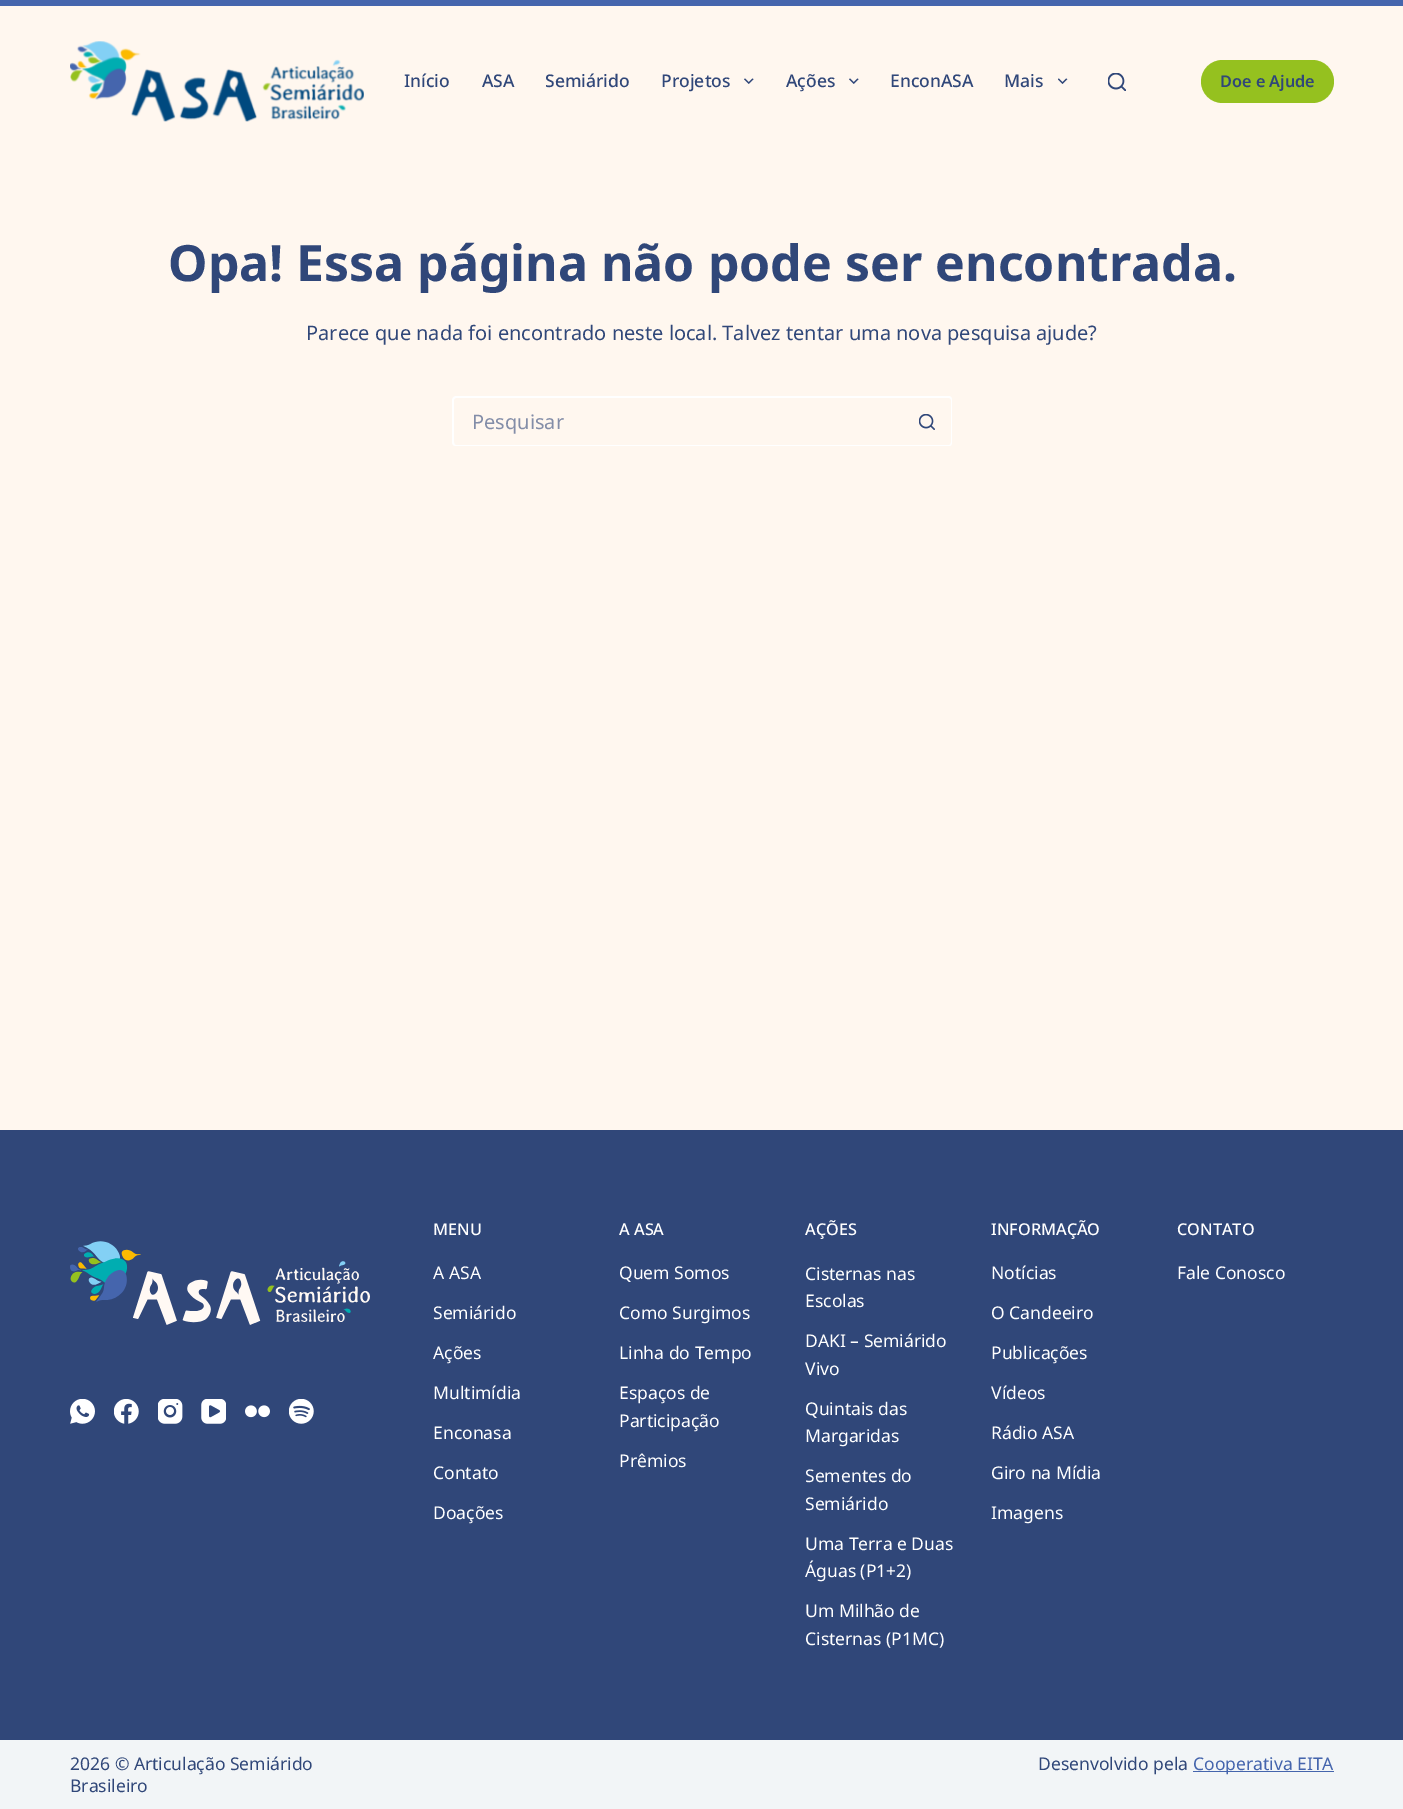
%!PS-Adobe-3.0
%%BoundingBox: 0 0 1403 1809
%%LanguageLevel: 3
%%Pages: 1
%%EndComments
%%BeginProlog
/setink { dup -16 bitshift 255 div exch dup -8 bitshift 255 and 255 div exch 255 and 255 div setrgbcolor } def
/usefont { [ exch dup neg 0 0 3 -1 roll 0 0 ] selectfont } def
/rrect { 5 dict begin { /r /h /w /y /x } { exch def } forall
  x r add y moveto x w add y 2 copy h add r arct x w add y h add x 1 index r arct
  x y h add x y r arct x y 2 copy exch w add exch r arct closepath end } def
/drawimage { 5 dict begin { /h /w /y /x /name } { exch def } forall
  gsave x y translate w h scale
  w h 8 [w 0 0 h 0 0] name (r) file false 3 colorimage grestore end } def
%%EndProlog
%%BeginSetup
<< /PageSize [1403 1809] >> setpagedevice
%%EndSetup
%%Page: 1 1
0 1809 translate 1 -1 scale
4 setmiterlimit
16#FFF7EF setink
0 0 1403 1809 rectfill
16#4565AD setink
0 0 1403 6 rectfill
(img1.raw) 70 41 294 81 drawimage
/NotoSans-Medium 17.5 usefont
16#304779 setink
[
    [(Início) 404 87]
    [(ASA) 482 87]
    [(Semiárido) 545 87]
    [(Projetos) 661 87]
] { aload pop moveto show } forall
(img2.raw) 744 78 10 6 drawimage
786 87 moveto (Ações) show
(img2.raw) 849 78 10 6 drawimage
890 87 moveto (EnconASA) show
1004 87 moveto (Mais) show
(img3.raw) 1058 78 10 6 drawimage
(img4.raw) 1108 73 18 18 drawimage
16#95C11F setink
1201 60 133 43 21.5 rrect fill
/NotoSans-SemiBold 16.25 usefont
16#304779 setink
1220 87 moveto (Doe e Ajude) show
/NotoSans-Bold 50 usefont
168 281 moveto (Opa! Essa página não pode ser encontrada.) show
/NotoSans-Regular 20 usefont
306 340 moveto (Parece que nada foi encontrado neste local. Talvez tentar uma nova pesquisa ajude?) show
16#FFFFFF setink
456 396 moveto 902 396 lineto 902 446 lineto 456 446 lineto 454 446 452 445 452 442 curveto 452 400 lineto 452 398 454 396 456 396 curveto closepath 456 398 moveto 902 398 lineto 902 445 lineto 456 445 lineto 455 445 454 444 454 442 curveto 454 400 lineto 454 399 455 398 456 398 curveto closepath eofill
16#838DA8 setink
472 429 moveto (Pesquisar) show
16#FFFFFF setink
902 396 moveto 949 396 lineto 951 396 952 398 952 400 curveto 952 442 lineto 952 445 951 446 949 446 curveto 902 446 lineto closepath 902 398 moveto 949 398 lineto 950 398 951 399 951 400 curveto 951 442 lineto 951 444 950 445 949 445 curveto 902 445 lineto closepath eofill
(img5.raw) 919 414 16 16 drawimage
16#F2F5F7 setink
0 1740 1403 69 rectfill
16#304779 setink
0 1130 1403 610 rectfill
(img6.raw) 70 1241 300 84 drawimage
(img7.raw) 70 1399 25 25 drawimage
(img8.raw) 114 1399 25 25 drawimage
(img9.raw) 158 1399 25 25 drawimage
(img10.raw) 201 1399 25 25 drawimage
(img11.raw) 245 1405 25 13 drawimage
(img12.raw) 289 1399 25 25 drawimage
/NotoSans-Medium 16.25 usefont
16#FFFFFF setink
433 1235 moveto (MENU) show
/NotoSans-Regular 17.5 usefont
[
    [(A ASA) 433 1279]
    [(Semiárido) 433 1319]
    [(Ações) 433 1359]
    [(Multimídia) 433 1399]
    [(Enconasa) 433 1439]
    [(Contato) 433 1479]
    [(Doações) 433 1519]
] { aload pop moveto show } forall
/NotoSans-Medium 16.25 usefont
619 1235 moveto (A ASA) show
/NotoSans-Regular 17.5 usefont
[
    [(Quem Somos) 619 1279]
    [(Como Surgimos) 619 1319]
    [(Linha do Tempo) 619 1359]
    [(Espaços de) 619 1399]
    [(Participação) 619 1427]
    [(Prêmios) 619 1467]
] { aload pop moveto show } forall
/NotoSans-Medium 16.25 usefont
805 1235 moveto (AÇÕES) show
/NotoSans-Regular 17.5 usefont
[
    [(Cisternas nas) 805 1280]
    [(Escolas) 805 1307]
    [(DAKI – Semiárido) 805 1347]
    [(Vivo) 805 1375]
    [(Quintais das) 805 1415]
    [(Margaridas) 805 1442]
    [(Sementes do) 805 1482]
    [(Semiárido) 805 1510]
    [(Uma Terra e Duas) 805 1550]
    [(Águas \(P1+2\)) 805 1577]
    [(Um Milhão de) 805 1617]
    [(Cisternas \(P1MC\)) 805 1645]
] { aload pop moveto show } forall
/NotoSans-Medium 16.25 usefont
991 1235 moveto (INFORMAÇÃO) show
/NotoSans-Regular 17.5 usefont
[
    [(Notícias) 991 1279]
    [(O Candeeiro) 991 1319]
    [(Publicações) 991 1359]
    [(Vídeos) 991 1399]
    [(Rádio ASA) 991 1439]
    [(Giro na Mídia) 991 1479]
    [(Imagens) 991 1519]
] { aload pop moveto show } forall
/NotoSans-Medium 16.25 usefont
1177 1235 moveto (CONTATO) show
/NotoSans-Regular 17.5 usefont
1177 1279 moveto (Fale Conosco) show
16#304779 setink
[
    [(2026 © Articulação Semiárido) 70 1770]
    [(Brasileiro) 70 1792]
    [(Desenvolvido pela) 1038 1770]
] { aload pop moveto show } forall
16#4565AD setink
1193 1771 141 1 rectfill
1193 1770 moveto (Cooperativa EITA) show
showpage
%%EOF
